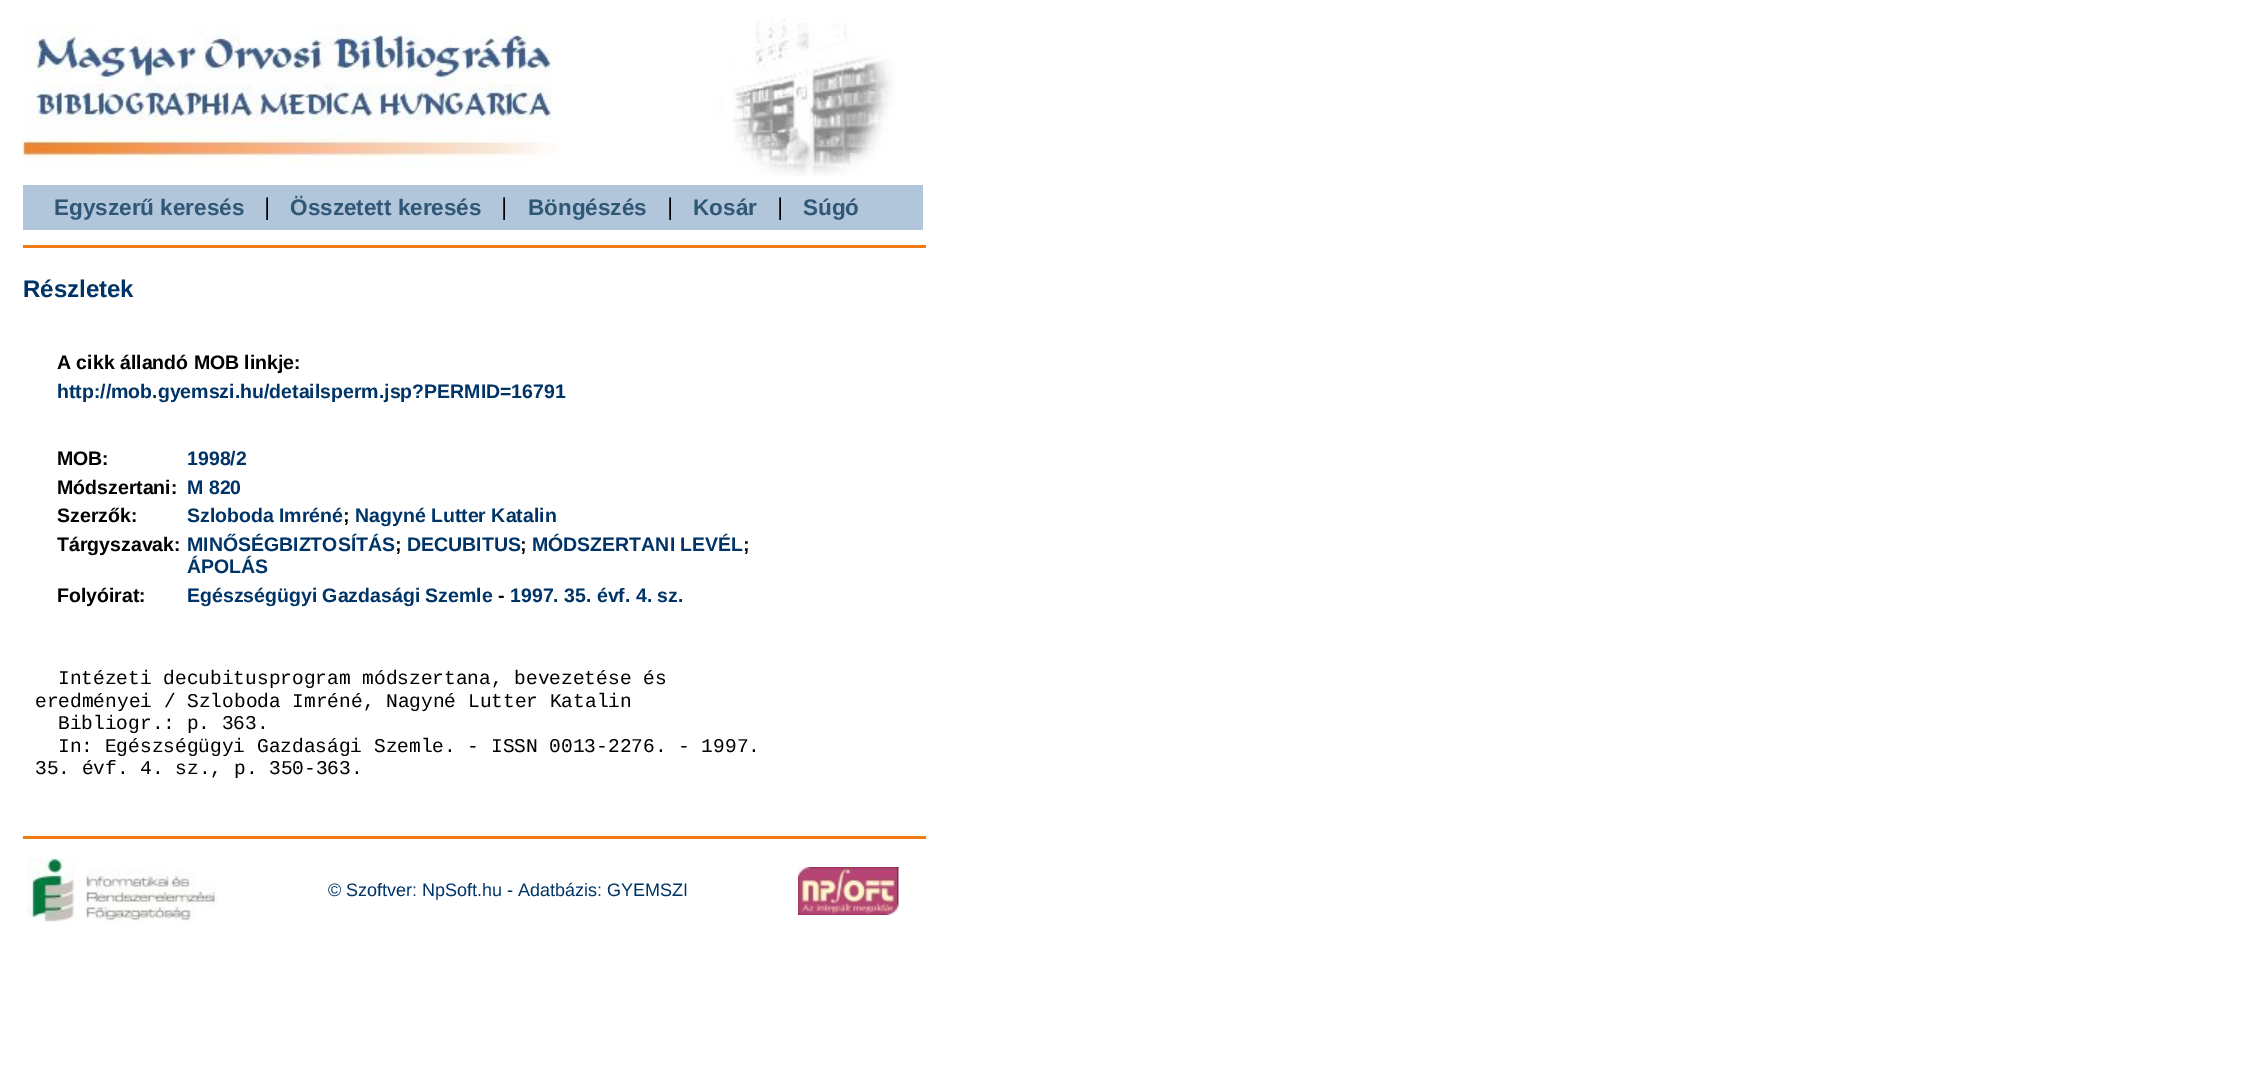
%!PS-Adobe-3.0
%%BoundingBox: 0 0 2245 1084
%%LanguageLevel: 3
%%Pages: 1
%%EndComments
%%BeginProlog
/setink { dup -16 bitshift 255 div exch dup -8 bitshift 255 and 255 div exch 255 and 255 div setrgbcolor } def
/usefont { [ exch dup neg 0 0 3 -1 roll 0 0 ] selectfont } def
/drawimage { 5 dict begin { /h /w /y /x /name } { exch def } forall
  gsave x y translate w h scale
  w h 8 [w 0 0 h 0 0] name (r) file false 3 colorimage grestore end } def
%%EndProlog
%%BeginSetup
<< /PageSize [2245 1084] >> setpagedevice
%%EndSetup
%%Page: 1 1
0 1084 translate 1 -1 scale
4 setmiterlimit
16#FFFFFF setink
0 0 2245 1084 rectfill
(img1.raw) 22 17 873 159 drawimage
16#B1C6DB setink
23 185 900 45 rectfill
/LiberationSans-Bold 22.5 usefont
16#305776 setink
54 215 moveto (Egyszerű keresés) show
/LiberationSans-Regular 24 usefont
16#000000 setink
264 215 moveto (|) show
/LiberationSans-Bold 22.5 usefont
16#305776 setink
290 215 moveto (Összetett keresés) show
/LiberationSans-Regular 24 usefont
16#000000 setink
501 215 moveto (|) show
/LiberationSans-Bold 22.5 usefont
16#305776 setink
528 215 moveto (Böngészés) show
/LiberationSans-Regular 24 usefont
16#000000 setink
667 215 moveto (|) show
/LiberationSans-Bold 22.5 usefont
16#305776 setink
693 215 moveto (Kosár) show
/LiberationSans-Regular 24 usefont
16#000000 setink
777 215 moveto (|) show
/LiberationSans-Bold 22.5 usefont
16#305776 setink
803 215 moveto (Súgó) show
16#F17A14 setink
23 245 903 3 rectfill
/LiberationSans-Bold 24 usefont
16#003366 setink
23 297 moveto (Részletek) show
/LiberationSans-Bold 19.5 usefont
16#000000 setink
57 369 moveto (A cikk állandó MOB linkje:) show
16#003366 setink
57 398 moveto (http://mob.gyemszi.hu/detailsperm.jsp?PERMID=16791) show
16#000000 setink
57 465 moveto (MOB:) show
16#003366 setink
187 465 moveto (1998/2) show
16#000000 setink
57 494 moveto (Módszertani:) show
16#003366 setink
187 494 moveto (M 820) show
16#000000 setink
57 522 moveto (Szerzők:) show
16#003366 setink
187 522 moveto (Szloboda Imréné) show
16#000000 setink
343 522 moveto (;) show
16#003366 setink
355 522 moveto (Nagyné Lutter Katalin) show
16#000000 setink
57 551 moveto (Tárgyszavak:) show
16#003366 setink
187 551 moveto (MINŐSÉGBIZTOSÍTÁS) show
16#000000 setink
395 551 moveto (;) show
16#003366 setink
407 551 moveto (DECUBITUS) show
16#000000 setink
520 551 moveto (;) show
16#003366 setink
532 551 moveto (MÓDSZERTANI LEVÉL) show
16#000000 setink
743 551 moveto (;) show
16#003366 setink
187 573 moveto (ÁPOLÁS) show
16#000000 setink
57 602 moveto (Folyóirat:) show
16#003366 setink
187 602 moveto (Egészségügyi Gazdasági Szemle) show
16#000000 setink
498 602 moveto (-) show
16#003366 setink
510 602 moveto (1997. 35. évf. 4. sz.) show
/LiberationMono-Regular 19.5 usefont
16#000000 setink
[
    [(Intézeti decubitusprogram módszertana, bevezetése és) 58 684]
    [(eredményei / Szloboda Imréné, Nagyné Lutter Katalin) 35 707]
    [(Bibliogr.: p. 363.) 58 729]
    [(In: Egészségügyi Gazdasági Szemle. - ISSN 0013-2276. - 1997.) 58 752]
    [(35. évf. 4. sz., p. 350-363.) 35 774]
] { aload pop moveto show } forall
16#F17A14 setink
23 836 903 3 rectfill
(img2.raw) 27 858 191 65 drawimage
/LiberationSans-Regular 18 usefont
16#003366 setink
328 896 moveto (© Szoftver: NpSoft.hu - Adatbázis: GYEMSZI) show
(img3.raw) 798 867 101 48 drawimage
showpage
%%EOF
